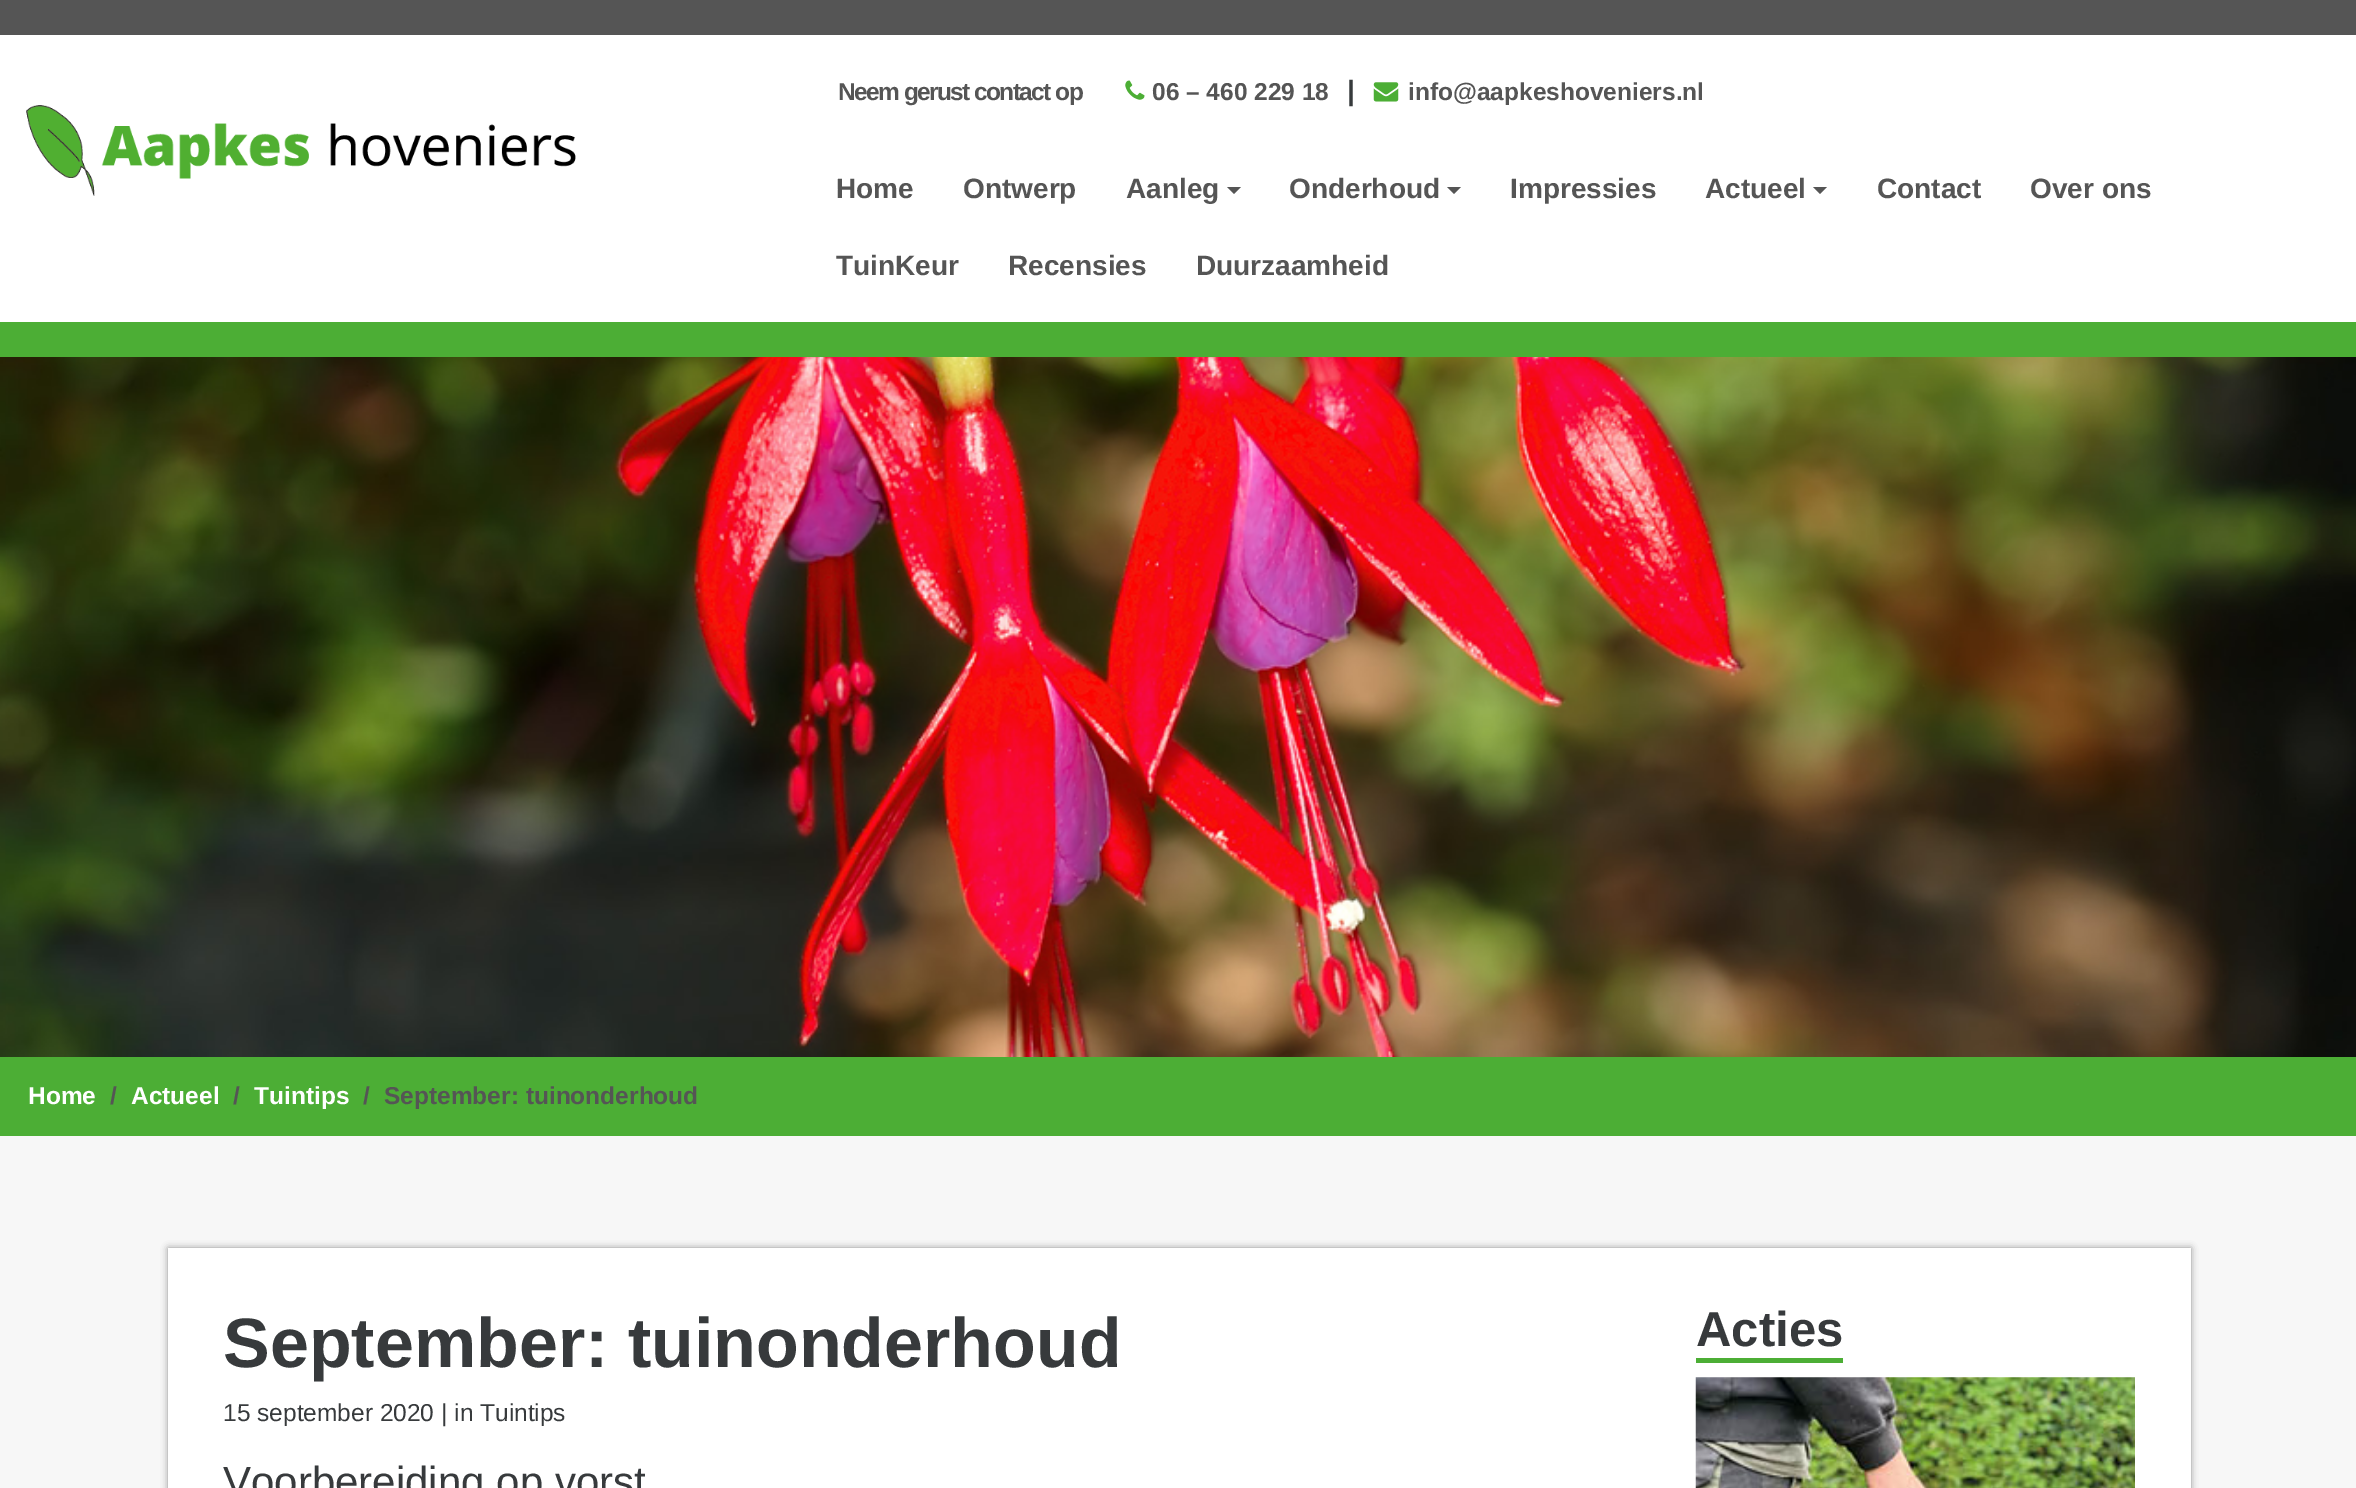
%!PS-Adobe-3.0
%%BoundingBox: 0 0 2356 1488
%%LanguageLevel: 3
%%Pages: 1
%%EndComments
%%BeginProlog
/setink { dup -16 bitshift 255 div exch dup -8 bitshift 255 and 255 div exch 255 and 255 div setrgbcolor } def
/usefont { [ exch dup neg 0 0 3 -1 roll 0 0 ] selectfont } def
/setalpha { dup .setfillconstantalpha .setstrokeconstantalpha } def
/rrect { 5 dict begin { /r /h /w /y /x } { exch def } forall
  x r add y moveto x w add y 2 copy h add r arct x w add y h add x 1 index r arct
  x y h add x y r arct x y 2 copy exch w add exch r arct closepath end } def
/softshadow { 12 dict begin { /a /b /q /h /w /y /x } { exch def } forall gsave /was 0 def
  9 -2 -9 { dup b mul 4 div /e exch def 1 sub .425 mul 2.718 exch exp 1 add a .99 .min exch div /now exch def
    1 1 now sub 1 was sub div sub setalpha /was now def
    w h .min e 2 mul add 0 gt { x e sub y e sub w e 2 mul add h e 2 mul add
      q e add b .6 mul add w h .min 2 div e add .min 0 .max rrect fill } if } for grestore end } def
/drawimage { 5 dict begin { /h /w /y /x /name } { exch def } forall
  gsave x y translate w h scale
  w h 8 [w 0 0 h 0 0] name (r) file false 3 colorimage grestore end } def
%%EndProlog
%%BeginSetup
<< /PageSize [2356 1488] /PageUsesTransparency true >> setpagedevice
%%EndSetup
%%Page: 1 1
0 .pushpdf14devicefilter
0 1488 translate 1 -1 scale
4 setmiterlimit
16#F7F7F7 setink
0 0 2356 1488 rectfill
[
    [0 35 2356 287 16#FFFFFF]
    [0 0 2356 35 16#555555]
    [0 322 2356 35 16#4CAE35]
] { aload pop setink rectfill } forall
(img1.raw) 26 105 550 91 drawimage
/LiberationSans-Bold 24.5 usefont
16#555555 setink
838 100 moveto -1.6 0 (Neem gerust contact op) ashow
(img2.raw) 1125 80 20 20 drawimage
1152 100 moveto (06 – 460 229 18) show
/LiberationSans-Bold 28 usefont
16#373A3C setink
1347 100 moveto (|) show
(img3.raw) 1373 82 26 20 drawimage
/LiberationSans-Bold 24.5 usefont
16#555555 setink
1408 100 moveto (info@aapkeshoveniers.nl) show
/LiberationSans-Bold 28 usefont
[
    [(Home) 836 198]
    [(Ontwerp) 963 198]
    [(Aanleg) 1126 198]
] { aload pop moveto show } forall
1227 187 moveto 1241 187 lineto 1234 194 lineto closepath fill
1289 198 moveto (Onderhoud) show
1447 187 moveto 1461 187 lineto 1454 194 lineto closepath fill
1510 198 moveto (Impressies) show
1705 198 moveto (Actueel) show
1813 187 moveto 1827 187 lineto 1820 194 lineto closepath fill
[
    [(Contact) 1877 198]
    [(Over ons) 2030 198]
    [(TuinKeur) 836 275]
    [(Recensies) 1008 275]
    [(Duurzaamheid) 1196 275]
] { aload pop moveto show } forall
(img4.raw) 0 357 2356 700 drawimage
16#4CAE35 setink
0 1057 2356 79 rectfill
/LiberationSans-Bold 24.5 usefont
16#FFFFFF setink
28 1104 moveto (Home) show
16#555555 setink
110 1104 moveto (/) show
16#FFFFFF setink
131 1104 moveto (Actueel) show
16#555555 setink
233 1104 moveto (/) show
16#FFFFFF setink
254 1104 moveto (Tuintips) show
16#555555 setink
363 1104 moveto (/) show
384 1104 moveto (September: tuinonderhoud) show
16#000000 setink
168 1248 2023 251 0 3.5 0.4 softshadow
16#FFFFFF setink
168 1248 2023 240 rectfill
/LiberationSans-Bold 70 usefont
16#373A3C setink
223 1367 moveto (September: tuinonderhoud) show
/LiberationSans-Regular 24.5 usefont
223 1421 moveto (15 september 2020 | in Tuintips) show
/LiberationSans-Regular 42 usefont
223 1496 moveto (Voorbereiding op vorst) show
16#4CAE35 setink
1696 1358 147 5 rectfill
/LiberationSans-Bold 49 usefont
16#373A3C setink
1696 1346 moveto (Acties) show
(img5.raw) 1695 1377 440 111 drawimage
.poppdf14devicefilter showpage
%%EOF
